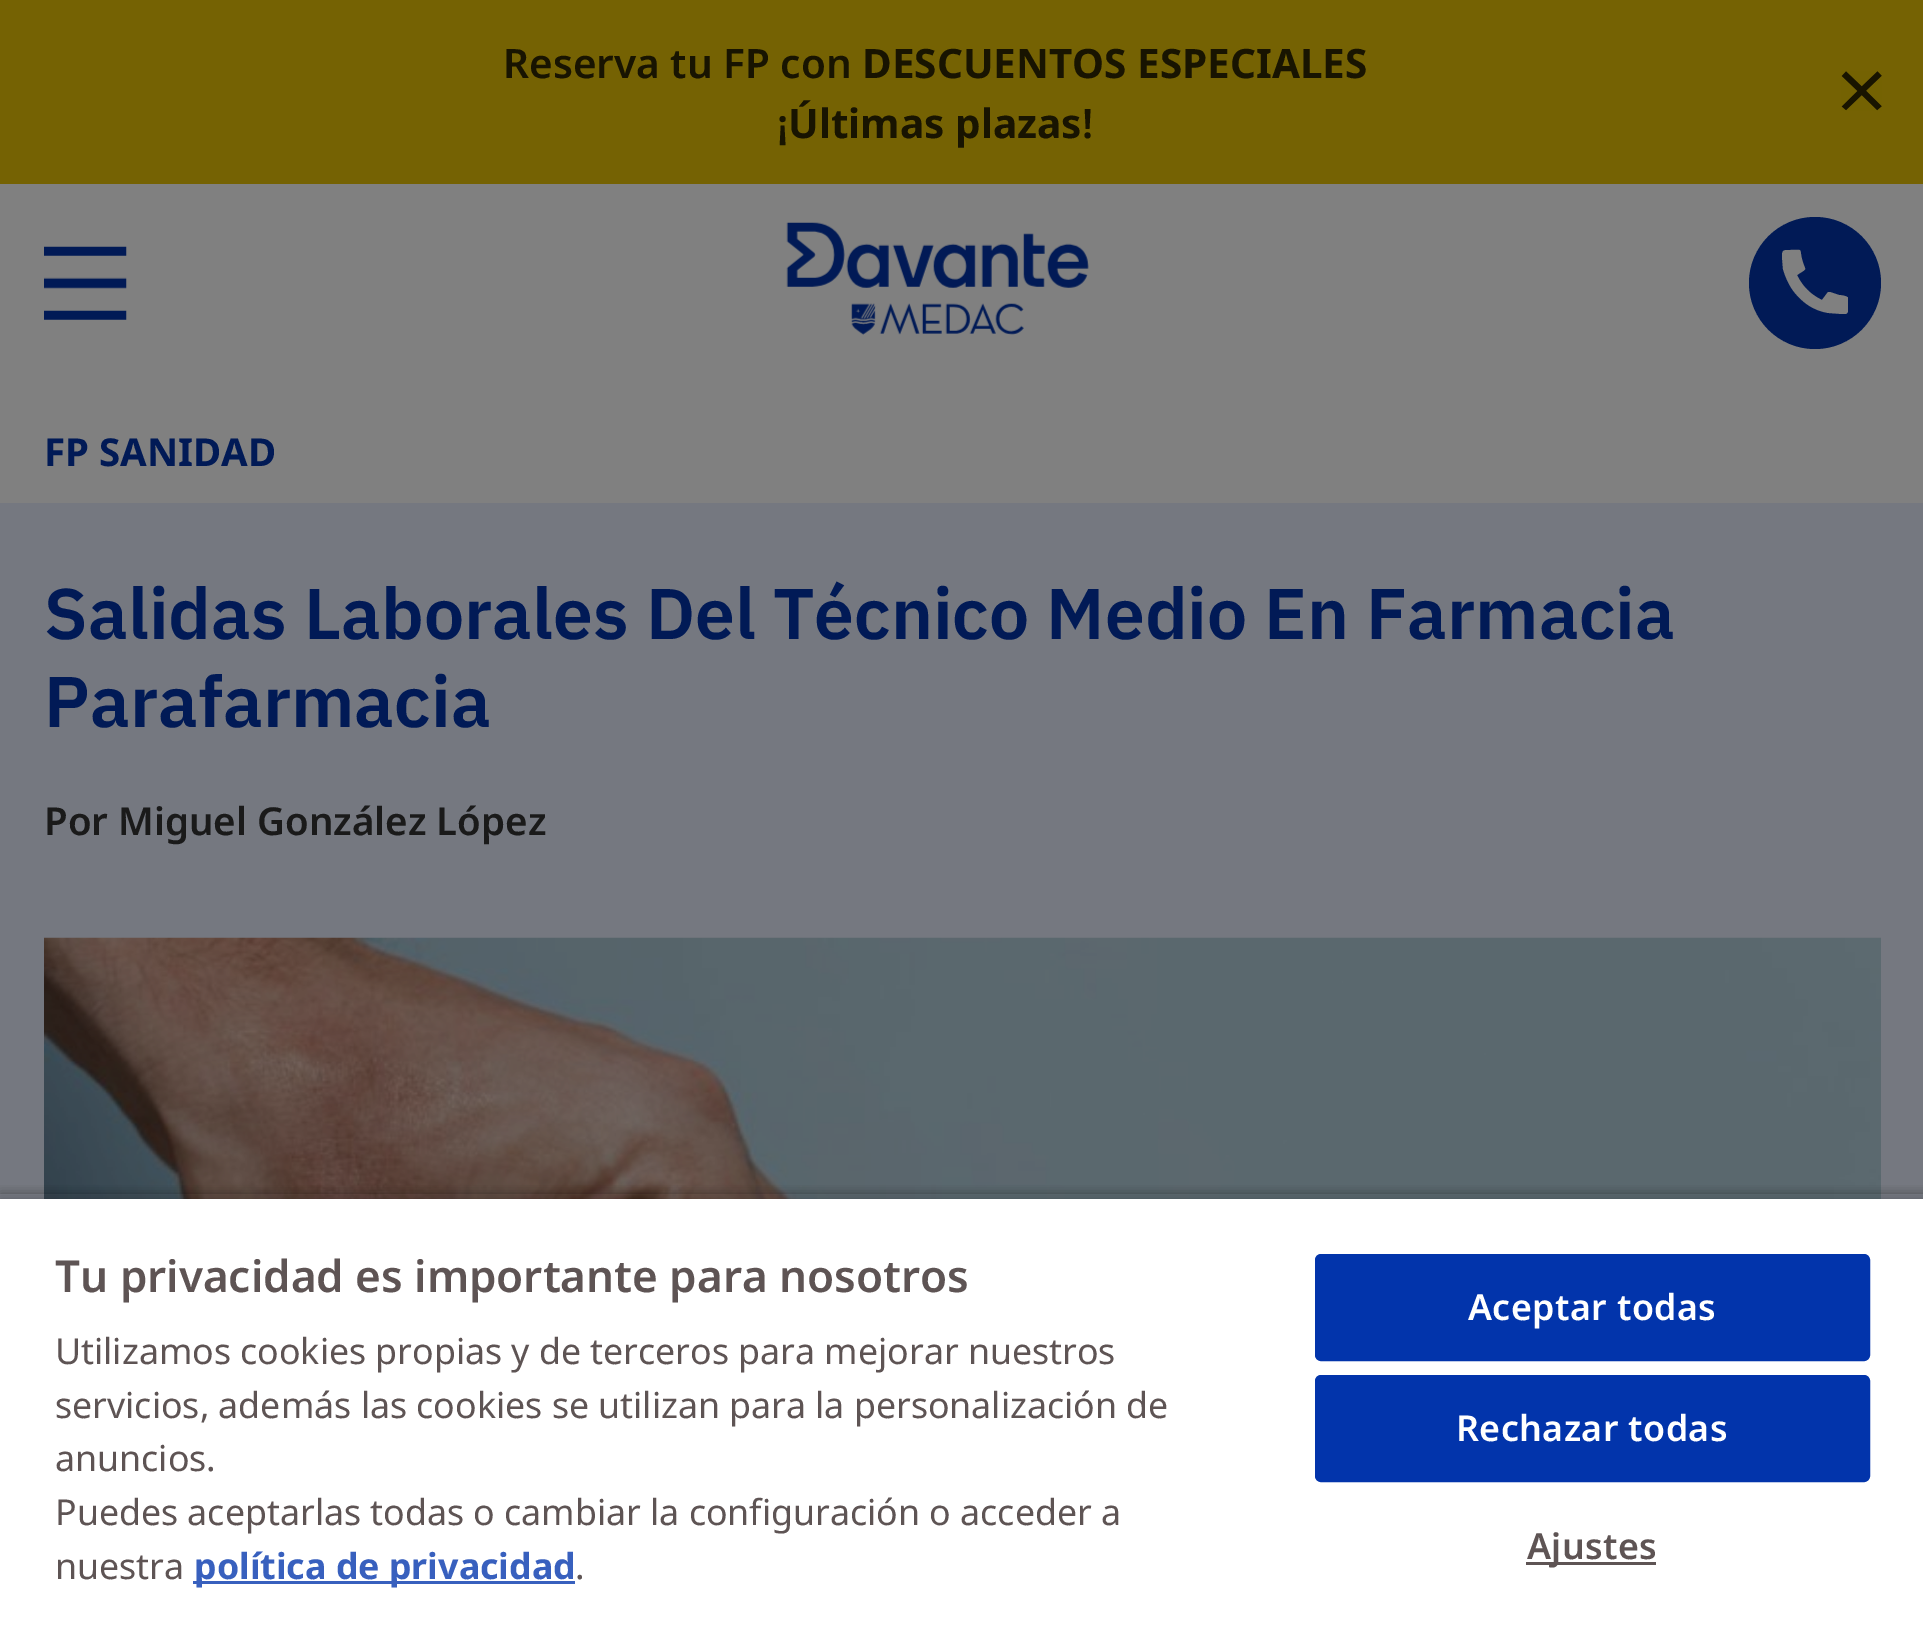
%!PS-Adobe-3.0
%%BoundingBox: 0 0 1923 1640
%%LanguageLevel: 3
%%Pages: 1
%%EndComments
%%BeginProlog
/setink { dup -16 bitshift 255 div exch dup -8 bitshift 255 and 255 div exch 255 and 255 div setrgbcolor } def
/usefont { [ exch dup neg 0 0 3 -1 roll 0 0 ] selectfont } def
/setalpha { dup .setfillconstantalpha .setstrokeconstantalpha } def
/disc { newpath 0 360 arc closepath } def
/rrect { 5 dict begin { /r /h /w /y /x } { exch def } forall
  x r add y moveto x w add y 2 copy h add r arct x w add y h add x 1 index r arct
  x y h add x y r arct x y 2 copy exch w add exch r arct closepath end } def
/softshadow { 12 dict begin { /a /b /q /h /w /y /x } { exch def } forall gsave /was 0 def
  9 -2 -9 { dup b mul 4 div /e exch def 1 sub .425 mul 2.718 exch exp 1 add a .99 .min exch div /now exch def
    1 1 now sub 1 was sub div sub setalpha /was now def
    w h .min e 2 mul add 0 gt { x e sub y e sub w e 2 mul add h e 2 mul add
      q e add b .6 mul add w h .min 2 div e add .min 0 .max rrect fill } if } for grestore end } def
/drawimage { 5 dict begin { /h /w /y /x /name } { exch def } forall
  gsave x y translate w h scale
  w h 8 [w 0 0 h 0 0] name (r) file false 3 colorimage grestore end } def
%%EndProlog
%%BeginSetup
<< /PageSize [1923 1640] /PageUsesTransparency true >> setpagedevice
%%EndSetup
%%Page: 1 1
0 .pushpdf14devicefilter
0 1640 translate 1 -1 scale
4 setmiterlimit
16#808080 setink
0 0 1923 1640 rectfill
16#756203 setink
0 0 1923 184 rectfill
/NotoSans-SemiBold 40.5 usefont
16#181401 setink
503 78 moveto (Reserva tu FP con) show
/NotoSans-Bold 40.5 usefont
862 78 moveto (DESCUENTOS ESPECIALES) show
/NotoSans-SemiBold 40.5 usefont
777 138 moveto (¡) show
/NotoSans-Bold 40.5 usefont
788 138 moveto (Últimas plazas) show
/NotoSans-SemiBold 40.5 usefont
1082 138 moveto (!) show
(img1.raw) 1841 71 41 40 drawimage
(img2.raw) 44 246 83 74 drawimage
(img3.raw) 786 222 303 113 drawimage
16#011A56 setink
1815 283 66 disc fill
16#808080 setink
1848 298 moveto 1848 309 lineto 1848 314 1847 314 1842 314 curveto 1829 313 lineto 1821 312 1814 309 1808 305 curveto 1802 301 1796 295 1792 289 curveto 1788 283 1785 276 1783 269 curveto 1782 257 lineto 1782 250 1783 250 1790 250 curveto 1804 250 1799 248 1802 259 curveto 1805 272 1809 267 1797 275 curveto 1802 286 1811 295 1822 300 curveto 1828 292 lineto 1830 292 lineto 1839 295 lineto 1840 295 1848 296 1848 298 curveto closepath fill
/NotoSans-Bold 38.5 usefont
16#011A56 setink
44 466 moveto (FP SANIDAD) show
16#757880 setink
0 503 1923 696 rectfill
/IBMPlexSans-SemiBold 71.5 usefont
16#011A56 setink
44 639 moveto (Salidas Laborales Del Técnico Medio En Farmacia) show
44 727 moveto (Parafarmacia) show
/NotoSans-SemiBold 38.5 usefont
16#1A1A1A setink
44 835 moveto (Por Miguel González López) show
(img4.raw) 44 937 1837 262 drawimage
gsave
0 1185 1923 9 rectclip
16#000000 setink
0 1194 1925 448 0 5.5 0.35 softshadow
grestore
gsave
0 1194 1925 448 rectclip
16#000000 setink
0 1199 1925 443 0 5.5 0.2 softshadow
grestore
16#FFFFFF setink
0 1199 1923 441 rectfill
/NotoSans-SemiBold 44 usefont
16#5E5454 setink
55 1292 moveto (Tu privacidad es importante para nosotros) show
/NotoSans-Regular 35.75 usefont
[
    [(Utilizamos cookies propias y de terceros para mejorar nuestros) 55 1364]
    [(servicios, además las cookies se utilizan para la personalización de) 55 1418]
    [(anuncios.) 55 1471]
    [(Puedes aceptarlas todas o cambiar la configuración o acceder a) 55 1525]
    [(nuestra) 55 1579]
] { aload pop moveto show } forall
16#3860BE setink
193 1581 382 3 rectfill
/NotoSans-Bold 35.75 usefont
194 1579 moveto (política de privacidad) show
/NotoSans-Regular 35.75 usefont
16#5E5454 setink
575 1579 moveto (.) show
16#0234AB setink
1316.5 1255.5 552 104 4.5 rrect gsave fill grestore
3 setlinewidth
stroke
/NotoSans-SemiBold 35.75 usefont
16#FFFFFF setink
1468 1320 moveto 0.4 0 (Aceptar todas) ashow
16#0234AB setink
1316.5 1376.5 552 104 4.5 rrect gsave fill grestore
stroke
16#FFFFFF setink
1456 1441 moveto 0.4 0 (Rechazar todas) ashow
16#5E5454 setink
1526 1562 130 3 rectfill
1527 1559 moveto 0.4 0 (Ajustes) ashow
.poppdf14devicefilter showpage
%%EOF
